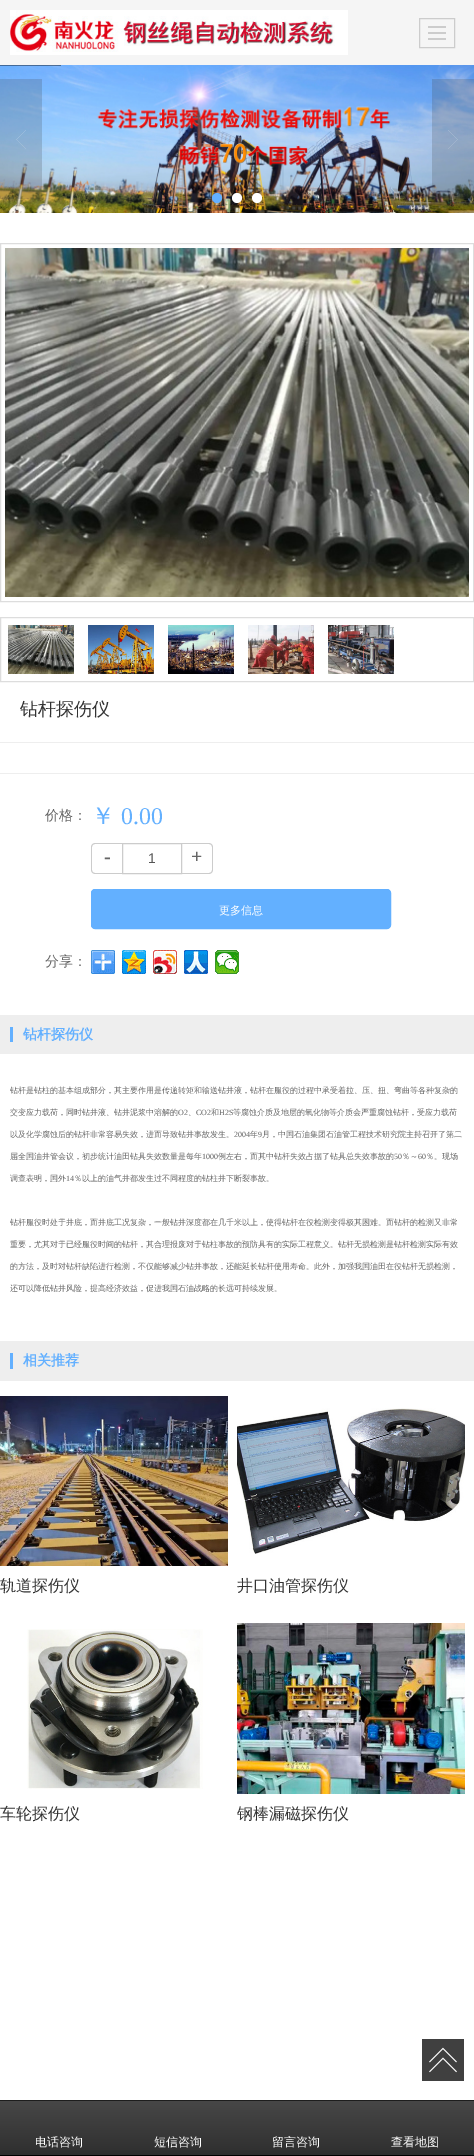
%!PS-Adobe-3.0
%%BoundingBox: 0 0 474 2156
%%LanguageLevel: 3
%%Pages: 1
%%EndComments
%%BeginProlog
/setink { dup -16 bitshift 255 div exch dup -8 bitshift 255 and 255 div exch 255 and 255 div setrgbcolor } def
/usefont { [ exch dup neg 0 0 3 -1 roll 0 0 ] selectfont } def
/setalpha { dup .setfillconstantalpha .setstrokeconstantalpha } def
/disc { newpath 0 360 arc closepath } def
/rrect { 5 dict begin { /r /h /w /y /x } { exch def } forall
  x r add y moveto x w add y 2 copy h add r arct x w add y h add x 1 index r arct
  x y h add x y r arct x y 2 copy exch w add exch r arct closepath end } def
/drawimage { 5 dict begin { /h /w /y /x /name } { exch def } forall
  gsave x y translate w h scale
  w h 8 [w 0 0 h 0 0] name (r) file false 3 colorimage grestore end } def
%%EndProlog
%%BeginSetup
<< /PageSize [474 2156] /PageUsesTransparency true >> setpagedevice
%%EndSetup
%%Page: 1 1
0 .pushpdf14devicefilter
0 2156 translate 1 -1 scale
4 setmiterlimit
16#FFFFFF setink
0 0 474 2156 rectfill
16#F5F5F5 setink
0 0 474 65 rectfill
(img1.raw) 10 10 338 45 drawimage
16#CCCCCC setink
419.5 18.5 35 29 rectstroke
[
    [428 26 18 2 16#CCCCCC]
    [428 32 18 2 16#CCCCCC]
    [428 38 18 2 16#CCCCCC]
] { aload pop setink rectfill } forall
(img2.raw) 0 65 474 148 drawimage
0.4 setalpha
16#000000 setink
0 65 61 1 rectfill
0.2 setalpha
16#393939 setink
0 79 42 120 rectfill
1 setalpha
(img3.raw) 16 130 10 19 drawimage
16#63B0FF setink
217 198 5 disc fill
16#FFFFFF setink
237 198 5 disc fill
257 198 5 disc fill
0.2 setalpha
16#393939 setink
432 79 42 120 rectfill
1 setalpha
(img4.raw) 448 130 10 19 drawimage
16#DDDDDD setink
0.5 243.5 473 358 rectstroke
(img5.raw) 5 248 464 349 drawimage
0.5 617.5 473 64 rectstroke
(img6.raw) 8 625 66 49 drawimage
(img7.raw) 88 625 66 49 drawimage
(img8.raw) 168 625 66 49 drawimage
(img9.raw) 248 625 66 49 drawimage
(img10.raw) 328 625 66 49 drawimage
/WenQuanYiZenHei-Medium 18 usefont
16#333333 setink
20 715 moveto (钻杆探伤仪) show
16#EEEEEE setink
0 742 474 1 rectfill
0 773 474 1 rectfill
/WenQuanYiZenHei-Medium 14 usefont
16#666666 setink
45 820 moveto (价格：) show
/WenQuanYiZenHei-Medium 24 usefont
16#63B0FF setink
91 824 moveto (￥) show
/LiberationSerif-Regular 24 usefont
121 824 moveto (0.00) show
16#CCCCCC setink
95 843 moveto 122 843 lineto 122 874 lineto 95 874 lineto 93 874 91 872 91 870 curveto 91 847 lineto 91 845 93 843 95 843 curveto closepath 95 844 moveto 122 844 lineto 122 873 lineto 95 873 lineto 93.5 873 92 871.5 92 870 curveto 92 847 lineto 92 845.5 93.5 844 95 844 curveto closepath eofill
/LiberationSerif-Bold 20 usefont
16#666666 setink
104 863 moveto (-) show
16#CCCCCC setink
122.5 843.5 59 30 rectstroke
/LiberationSans-Regular 14 usefont
16#555555 setink
148 863 moveto (1) show
16#CCCCCC setink
182 843 moveto 209 843 lineto 211 843 213 845 213 847 curveto 213 870 lineto 213 872 211 874 209 874 curveto 182 874 lineto closepath 182 844 moveto 209 844 lineto 210.5 844 212 845.5 212 847 curveto 212 870 lineto 212 871.5 210.5 873 209 873 curveto 182 873 lineto closepath eofill
/LiberationSerif-Bold 20 usefont
16#666666 setink
191 863 moveto (+) show
16#63B0FF setink
91.5 889.5 299 39 3.5 rrect gsave fill grestore
stroke
/WenQuanYiZenHei-Medium 11 usefont
16#FFFFFF setink
219 914 moveto (更多信息) show
/WenQuanYiZenHei-Medium 14 usefont
16#666666 setink
45 966 moveto (分享：) show
(img11.raw) 91 950 24 24 drawimage
(img12.raw) 122 950 24 24 drawimage
(img13.raw) 153 950 24 24 drawimage
(img14.raw) 184 950 24 24 drawimage
(img15.raw) 215 950 24 24 drawimage
16#EEEEEE setink
0 1015 474 39 rectfill
16#63B0FF setink
10 1027 3 15 rectfill
/WenQuanYiZenHei-Bold 14 usefont
23 1039 moveto (钻杆探伤仪) show
/WenQuanYiZenHei-Medium 8 usefont
16#666666 setink
10 1093 moveto (钻杆是钻柱的基本组成部分，其主要作用是传递转矩和输送钻井液，钻杆在服役的过程中承受着拉、压、扭、弯曲等各种复杂的) show
10 1115 moveto (交变应力载荷，同时钻井液、钻井泥浆中溶解的) show
/LiberationSerif-Regular 8 usefont
178 1115 moveto (O2) show
/WenQuanYiZenHei-Medium 8 usefont
188 1115 moveto (、) show
/LiberationSerif-Regular 8 usefont
196 1115 moveto (CO2) show
/WenQuanYiZenHei-Medium 8 usefont
211 1115 moveto (和) show
/LiberationSerif-Regular 8 usefont
219 1115 moveto (H2S) show
/WenQuanYiZenHei-Medium 8 usefont
233 1115 moveto (等腐蚀介质及地层的氧化物等介质会严重腐蚀钻杆，受应力载荷) show
10 1137 moveto (以及化学腐蚀后的钻杆非常容易失效，进而导致钻井事故发生。) show
/LiberationSerif-Regular 8 usefont
234 1137 moveto (2004) show
/WenQuanYiZenHei-Medium 8 usefont
250 1137 moveto (年) show
/LiberationSerif-Regular 8 usefont
258 1137 moveto (9) show
/WenQuanYiZenHei-Medium 8 usefont
262 1137 moveto (月，中国石油集团石油管工程技术研究院主持召开了第二) show
10 1159 moveto (届全国油井管会议，初步统计油田钻具失效数量是每年) show
/LiberationSerif-Regular 8 usefont
202 1159 moveto (1000) show
/WenQuanYiZenHei-Medium 8 usefont
218 1159 moveto (例左右，而其中钻杆失效占据了钻具总失效事故的) show
/LiberationSerif-Regular 8 usefont
394 1159 moveto (50) show
/WenQuanYiZenHei-Medium 8 usefont
402 1159 moveto (％～) show
/LiberationSerif-Regular 8 usefont
418 1159 moveto (60) show
/WenQuanYiZenHei-Medium 8 usefont
426 1159 moveto (％。现场) show
10 1181 moveto (调查表明，国外) show
/LiberationSerif-Regular 8 usefont
66 1181 moveto (14) show
/WenQuanYiZenHei-Medium 8 usefont
[
    [(％以上的油气井都发生过不同程度的钻柱井下断裂事故。) 74 1181]
    [(钻杆服役时处于井底，而井底工况复杂，一般钻井深度都在几千米以上，使得钻杆在役检测变得极其困难。而钻杆的检测又非常) 10 1225]
    [(重要，尤其对于已经服役时间的钻杆，其合理报废对于钻柱事故的预防具有的实际工程意义。钻杆无损检测是钻杆检测实际有效) 10 1247]
    [(的方法，及时对钻杆缺陷进行检测，不仅能够减少钻井事故，还能延长钻杆使用寿命。此外，加强我国油田在役钻杆无损检测，) 10 1269]
    [(还可以降低钻井风险，提高经济效益，促进我国石油战略的长远可持续发展。) 10 1291]
] { aload pop moveto show } forall
16#EEEEEE setink
0 1341 474 40 rectfill
16#63B0FF setink
10 1353 3 16 rectfill
/WenQuanYiZenHei-Bold 14 usefont
23 1365 moveto (相关推荐) show
(img16.raw) 0 1396 228 170 drawimage
/WenQuanYiZenHei-Medium 16 usefont
16#333333 setink
0 1591 moveto (轨道探伤仪) show
(img17.raw) 237 1408 228 146 drawimage
237 1591 moveto (井口油管探伤仪) show
(img18.raw) 27 1629 176 160 drawimage
0 1819 moveto (车轮探伤仪) show
(img19.raw) 237 1623 228 171 drawimage
237 1819 moveto (钢棒漏磁探伤仪) show
gsave 0 2101 moveto 474 2101 lineto 474 2155 lineto 0 2155 lineto closepath clip newpath
<< /ShadingType 2 /ColorSpace /DeviceRGB /Coords [237 2101 237 2155] /Extend [true true] /Function << /FunctionType 2 /Domain [0 1] /C0 [0.278 0.278 0.278] /C1 [0.184 0.184 0.184] /N 1 >> >> shfill grestore
16#1D1D1D setink
0 2100 474 1 rectfill
16#000000 setink
0 2155 474 1 rectfill
/WenQuanYiZenHei-Medium 12 usefont
16#FFFFFF setink
[
    [(电话咨询) 35 2146]
    [(短信咨询) 154 2146]
    [(留言咨询) 272 2146]
    [(查看地图) 391 2146]
] { aload pop moveto show } forall
16#404040 setink
422 2039 42 42 rectfill
(img20.raw) 429 2047 28 26 drawimage
.poppdf14devicefilter showpage
%%EOF
